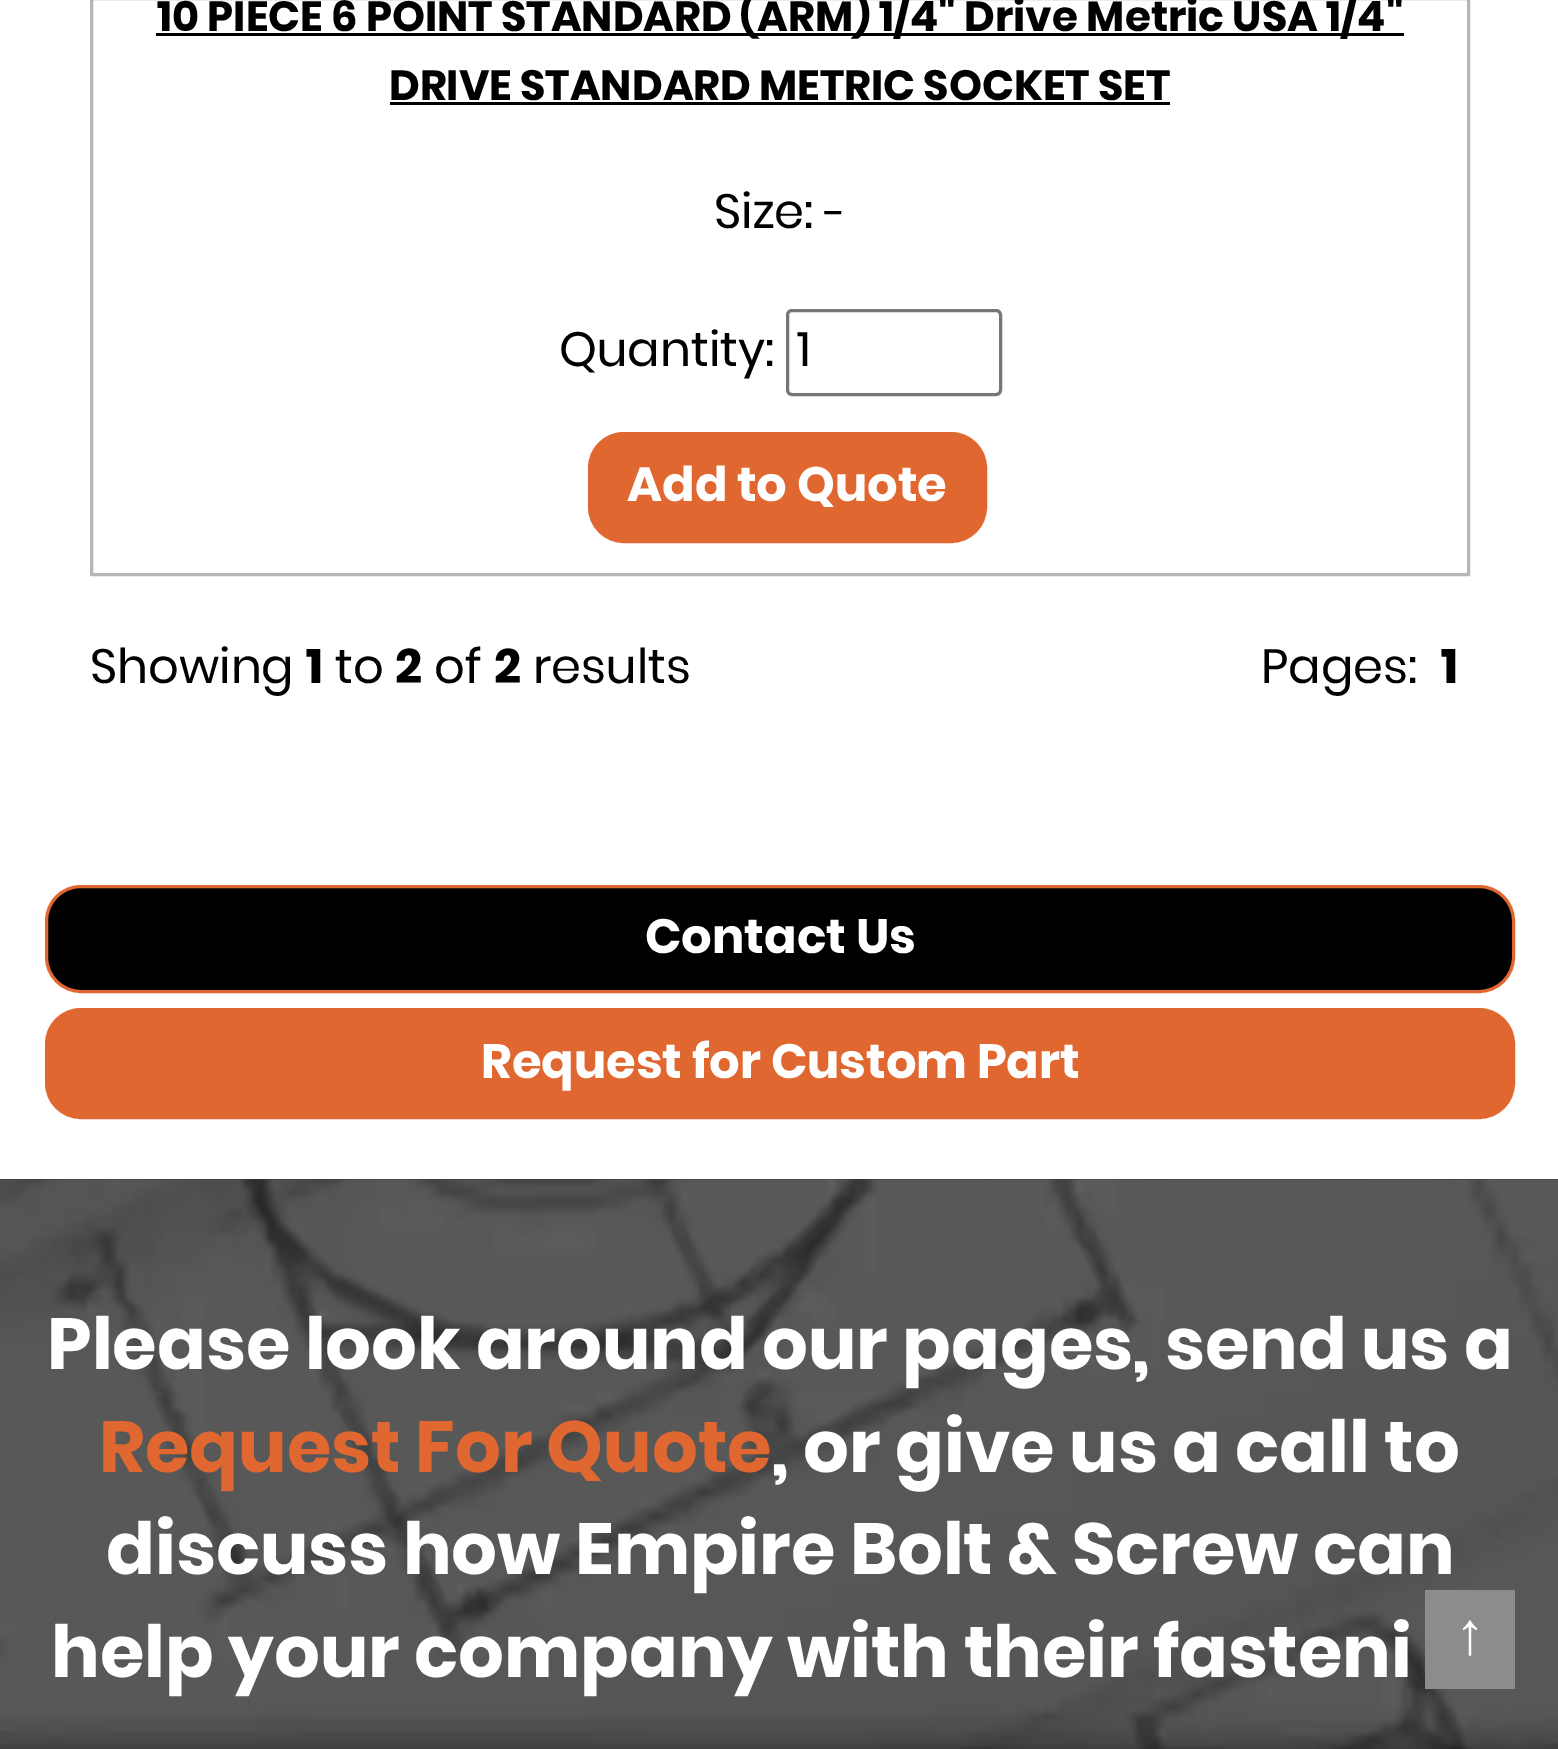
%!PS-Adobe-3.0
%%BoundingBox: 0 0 1558 1749
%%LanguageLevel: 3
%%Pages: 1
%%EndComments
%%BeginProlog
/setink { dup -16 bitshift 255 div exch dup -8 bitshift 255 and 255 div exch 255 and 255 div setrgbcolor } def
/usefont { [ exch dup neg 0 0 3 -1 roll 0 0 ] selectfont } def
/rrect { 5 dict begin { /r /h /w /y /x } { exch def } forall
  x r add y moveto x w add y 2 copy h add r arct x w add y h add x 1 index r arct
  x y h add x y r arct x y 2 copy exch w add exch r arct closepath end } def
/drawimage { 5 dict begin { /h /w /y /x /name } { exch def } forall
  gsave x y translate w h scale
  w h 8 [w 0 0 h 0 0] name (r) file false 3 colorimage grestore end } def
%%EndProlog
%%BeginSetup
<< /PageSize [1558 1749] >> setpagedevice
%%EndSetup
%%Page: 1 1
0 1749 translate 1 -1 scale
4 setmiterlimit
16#FFFFFF setink
0 0 1558 1749 rectfill
16#B6B6B6 setink
3 setlinewidth
91.5 -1.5 1377 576 rectstroke
16#000000 setink
156 33 1248 3 rectfill
/Poppins-Bold 42 usefont
157 31 moveto (10 PIECE 6 POINT STANDARD \(ARM\) 1/4" Drive Metric USA 1/4") show
389 100 moveto (DRIVE STANDARD METRIC SOCKET SET) show
390 102 780 3 rectfill
/Poppins-Regular 48 usefont
714 228 moveto (Size:) show
/Poppins-Regular 42 usefont
825 228 moveto (-) show
/Poppins-Regular 48 usefont
559 366 moveto (Quantity:) show
16#767676 setink
787.5 310.5 213 84 4.5 rrect stroke
16#000000 setink
797 366 moveto (1) show
16#E16731 setink
589.5 433.5 396 108 34.5 rrect gsave fill grestore
stroke
/Poppins-Bold 48 usefont
16#FFFFFF setink
627 501 moveto (Add to Quote) show
/Poppins-Regular 48 usefont
16#000000 setink
90 683 moveto (Showing) show
/Poppins-Bold 48 usefont
306 683 moveto (1) show
/Poppins-Regular 48 usefont
335 683 moveto (to) show
/Poppins-Bold 48 usefont
395 683 moveto (2) show
/Poppins-Regular 48 usefont
434 683 moveto (of) show
/Poppins-Bold 48 usefont
494 683 moveto (2) show
/Poppins-Regular 48 usefont
533 683 moveto (results) show
1261 683 moveto (Pages:) show
/Poppins-Bold 48 usefont
1441 683 moveto (1) show
46.5 886.5 1467 105 34.5 rrect gsave fill grestore
16#E16731 setink
stroke
16#FFFFFF setink
645 953 moveto (Contact Us) show
16#E16731 setink
46.5 1009.5 1467 108 34.5 rrect gsave fill grestore
stroke
16#FFFFFF setink
481 1078 moveto (Request for Custom Part) show
(img1.raw) 0 1179 1558 570 drawimage
/Poppins-Bold 72 usefont
47 1369 moveto (Please look around our pages, send us a) show
16#E16731 setink
99 1472 moveto (Request For Quote) show
16#FFFFFF setink
[
    [(, or give us a call to) 772 1472]
    [(discuss how Empire Bolt & Screw can) 106 1574]
    [(help your company with their fasteni) 51 1677]
] { aload pop moveto show } forall
16#8C8C8C setink
1425 1590 90 99 rectfill
/LiberationSans-Regular 60 usefont
16#FFFFFF setink
1455 1654 moveto (↑) show
showpage
%%EOF
